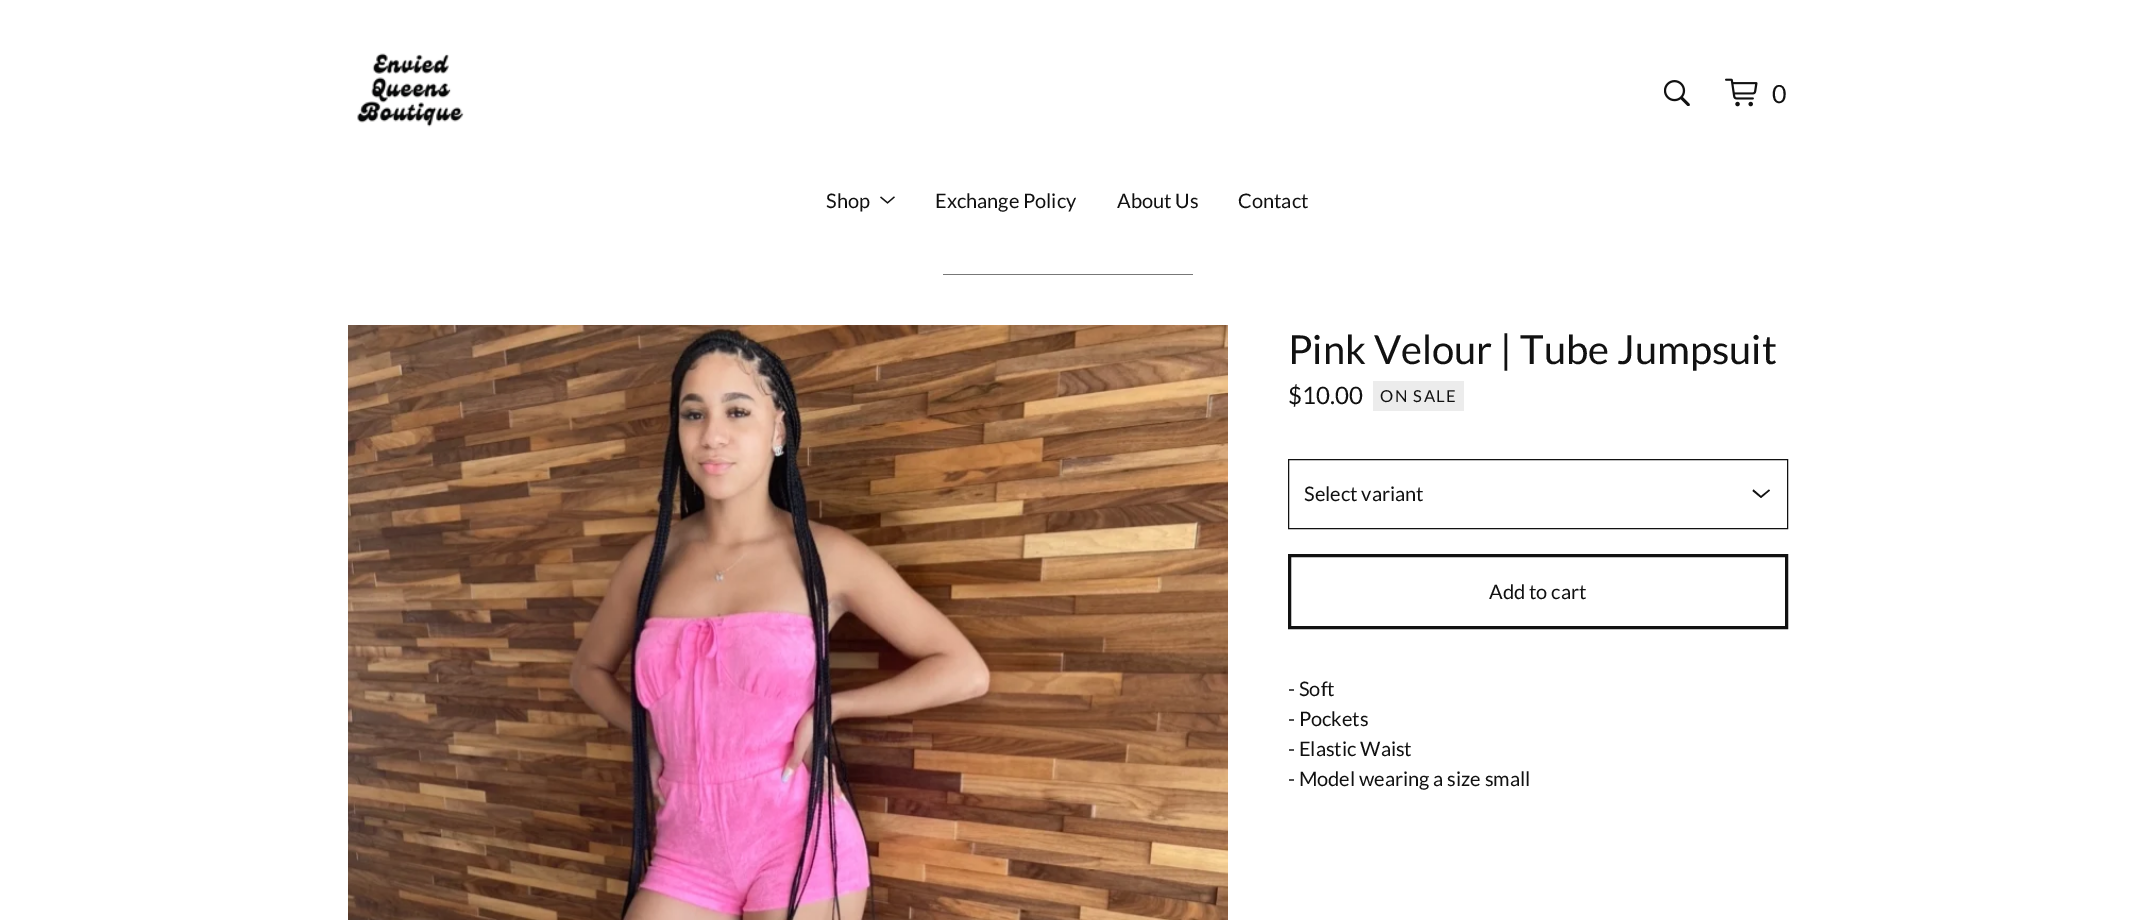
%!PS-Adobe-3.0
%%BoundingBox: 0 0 2135 920
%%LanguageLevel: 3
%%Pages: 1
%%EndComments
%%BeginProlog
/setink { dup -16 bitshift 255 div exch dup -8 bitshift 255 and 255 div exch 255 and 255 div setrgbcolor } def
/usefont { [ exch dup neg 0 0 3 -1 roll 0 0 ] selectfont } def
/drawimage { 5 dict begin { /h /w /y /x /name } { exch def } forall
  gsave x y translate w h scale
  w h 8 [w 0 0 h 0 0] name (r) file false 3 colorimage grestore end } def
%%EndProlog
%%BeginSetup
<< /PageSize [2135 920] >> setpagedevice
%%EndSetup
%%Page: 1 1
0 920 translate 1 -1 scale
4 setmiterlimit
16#FFFFFF setink
0 0 2135 920 rectfill
(img1.raw) 357 53 107 74 drawimage
(img2.raw) 1664 80 26 26 drawimage
(img3.raw) 1725 78 33 29 drawimage
/Lato-Regular 25 usefont
16#111111 setink
1772 103 moveto (0) show
/Lato-Regular 20 usefont
826 208 moveto (Shop) show
(img4.raw) 880 196 15 8 drawimage
[
    [(Exchange Policy) 935 208]
    [(About Us) 1117 208]
    [(Contact) 1238 208]
] { aload pop moveto show } forall
16#777777 setink
943 274 250 1 rectfill
(img5.raw) 348 325 880 595 drawimage
/Lato-Regular 40 usefont
16#111111 setink
1288 364 moveto (Pink Velour | Tube Jumpsuit) show
/Lato-Regular 24 usefont
1288 404 moveto ($10.00) show
16#ECECEC setink
1373 381 91 30 rectfill
/Lato-Regular 16.5 usefont
16#111111 setink
1380 402 moveto 1.5 0 (ON SALE) ashow
1770 490.5 moveto 1761 498 lineto 1752.5 491 lineto 1753.5 489.5 lineto 1761 496 lineto 1769 489.5 lineto closepath fill
1288.5 459.5 499 69 rectstroke
/Lato-Regular 20 usefont
1304 501 moveto (Select variant) show
3 setlinewidth
1289.5 555.5 497 72 rectstroke
[
    [(Add to cart) 1489 599]
    [(- Soft) 1288 696]
    [(- Pockets) 1288 726]
    [(- Elastic Waist) 1288 756]
    [(- Model wearing a size small) 1288 786]
] { aload pop moveto show } forall
showpage
%%EOF
